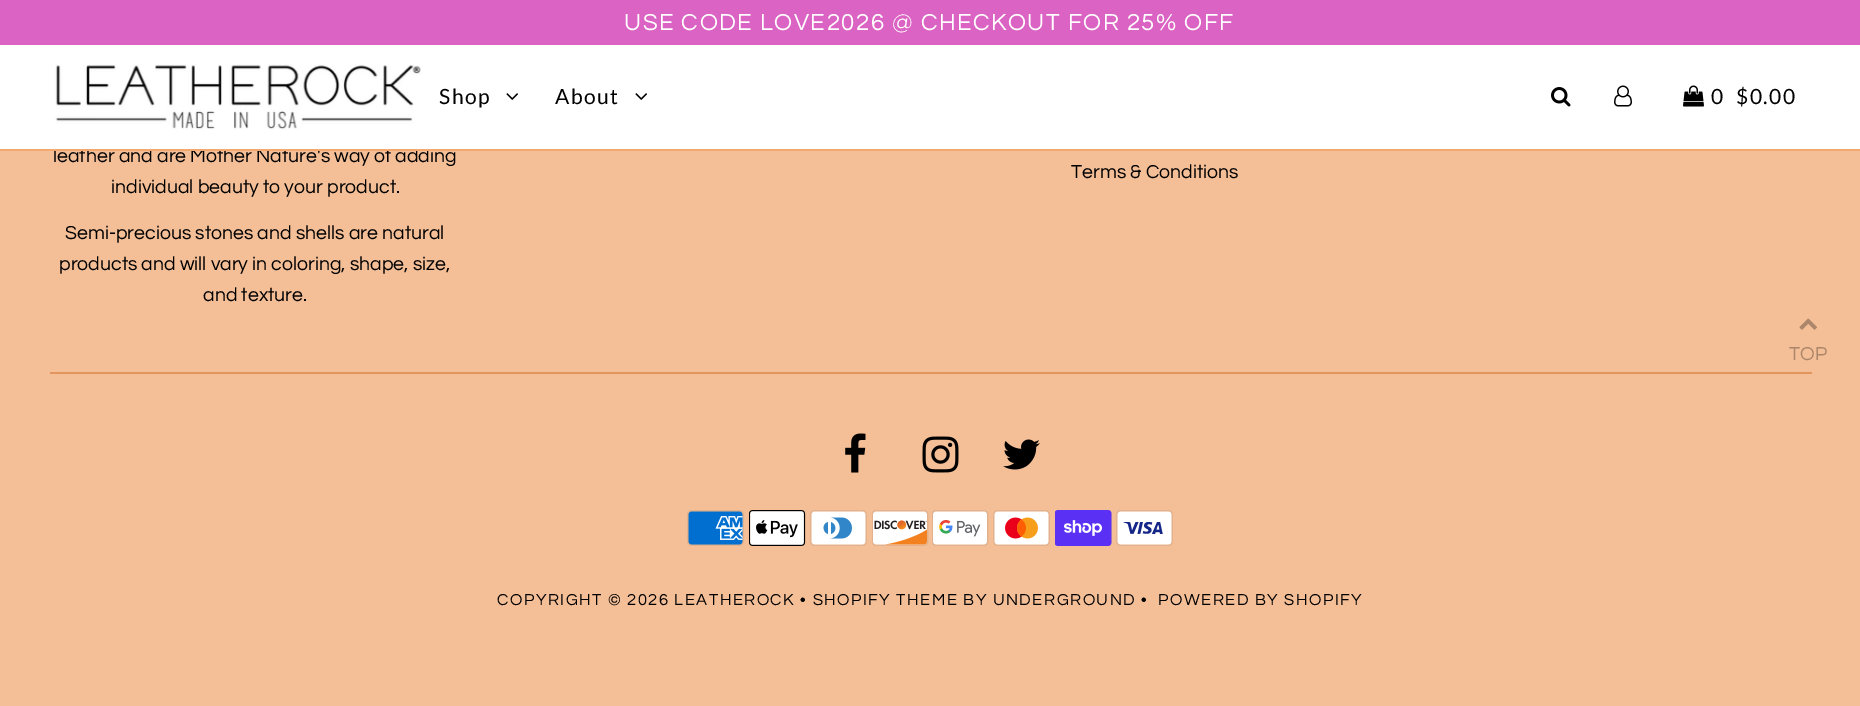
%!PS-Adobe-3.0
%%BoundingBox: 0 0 1860 706
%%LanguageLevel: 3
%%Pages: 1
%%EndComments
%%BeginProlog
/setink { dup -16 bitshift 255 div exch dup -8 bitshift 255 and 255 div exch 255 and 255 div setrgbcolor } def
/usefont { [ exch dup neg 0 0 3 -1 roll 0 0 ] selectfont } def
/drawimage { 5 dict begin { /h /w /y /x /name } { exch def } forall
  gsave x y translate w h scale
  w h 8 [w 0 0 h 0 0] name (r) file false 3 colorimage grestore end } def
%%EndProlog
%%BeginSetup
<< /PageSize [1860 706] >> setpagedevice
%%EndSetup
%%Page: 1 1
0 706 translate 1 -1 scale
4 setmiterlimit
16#F4BF97 setink
0 0 1860 706 rectfill
/Questrial-Regular 19.5 usefont
16#000000 setink
53 162 moveto (leather and are Mother Nature's way of adding) show
[
    [0 45 1860 104 16#FFFFFF]
    [0 149 1860 2 16#F3A870]
    [0 0 1860 45 16#DA63C3]
] { aload pop setink rectfill } forall
/Questrial-Regular 24 usefont
16#FFFFFF setink
624 30 moveto 1.5 0 (USE CODE LOVE2026 @ CHECKOUT FOR 25% OFF) ashow
(img1.raw) 55 64 366 66 drawimage
/Lato-Regular 21 usefont
16#000000 setink
439 104 moveto 1.5 0 (Shop) ashow
(img2.raw) 506 93 12 7 drawimage
555 104 moveto 1.5 0 (About) ashow
(img2.raw) 635 93 12 7 drawimage
(img3.raw) 1551 87 20 20 drawimage
(img4.raw) 1614 85 18 22 drawimage
(img5.raw) 1683 85 21 22 drawimage
1711 104 moveto 1.5 0 (0) ashow
1736 104 moveto 1.5 0 ($0.00) ashow
/Questrial-Regular 19.5 usefont
[
    [(individual beauty to your product.) 111 193]
    [(Semi-precious stones and shells are natural) 65 239]
    [(products and will vary in coloring, shape, size,) 59 270]
    [(and texture.) 203 301]
    [(Terms & Conditions) 1071 178]
] { aload pop moveto show } forall
16#E2965D setink
50 372 1762 2 rectfill
(img6.raw) 845 433 21 40 drawimage
(img7.raw) 922 436 37 37 drawimage
(img8.raw) 1003 439 37 31 drawimage
(img9.raw) 687 510 57 36 drawimage
(img10.raw) 749 510 57 36 drawimage
(img11.raw) 810 510 57 36 drawimage
(img12.raw) 872 510 57 36 drawimage
(img13.raw) 932 510 57 36 drawimage
(img14.raw) 993 510 57 36 drawimage
(img15.raw) 1055 510 57 36 drawimage
(img16.raw) 1116 510 57 36 drawimage
/Questrial-Regular 16.5 usefont
16#000000 setink
497 605 moveto 1.5 0 (COPYRIGHT © 2026 LEATHEROCK • SHOPIFY THEME BY UNDERGROUND •) ashow
1158 605 moveto 1.5 0 (POWERED BY SHOPIFY) ashow
(img17.raw) 1799 318 18 12 drawimage
/Questrial-Regular 19.5 usefont
16#AB866A setink
1789 360 moveto (TOP) show
showpage
%%EOF
